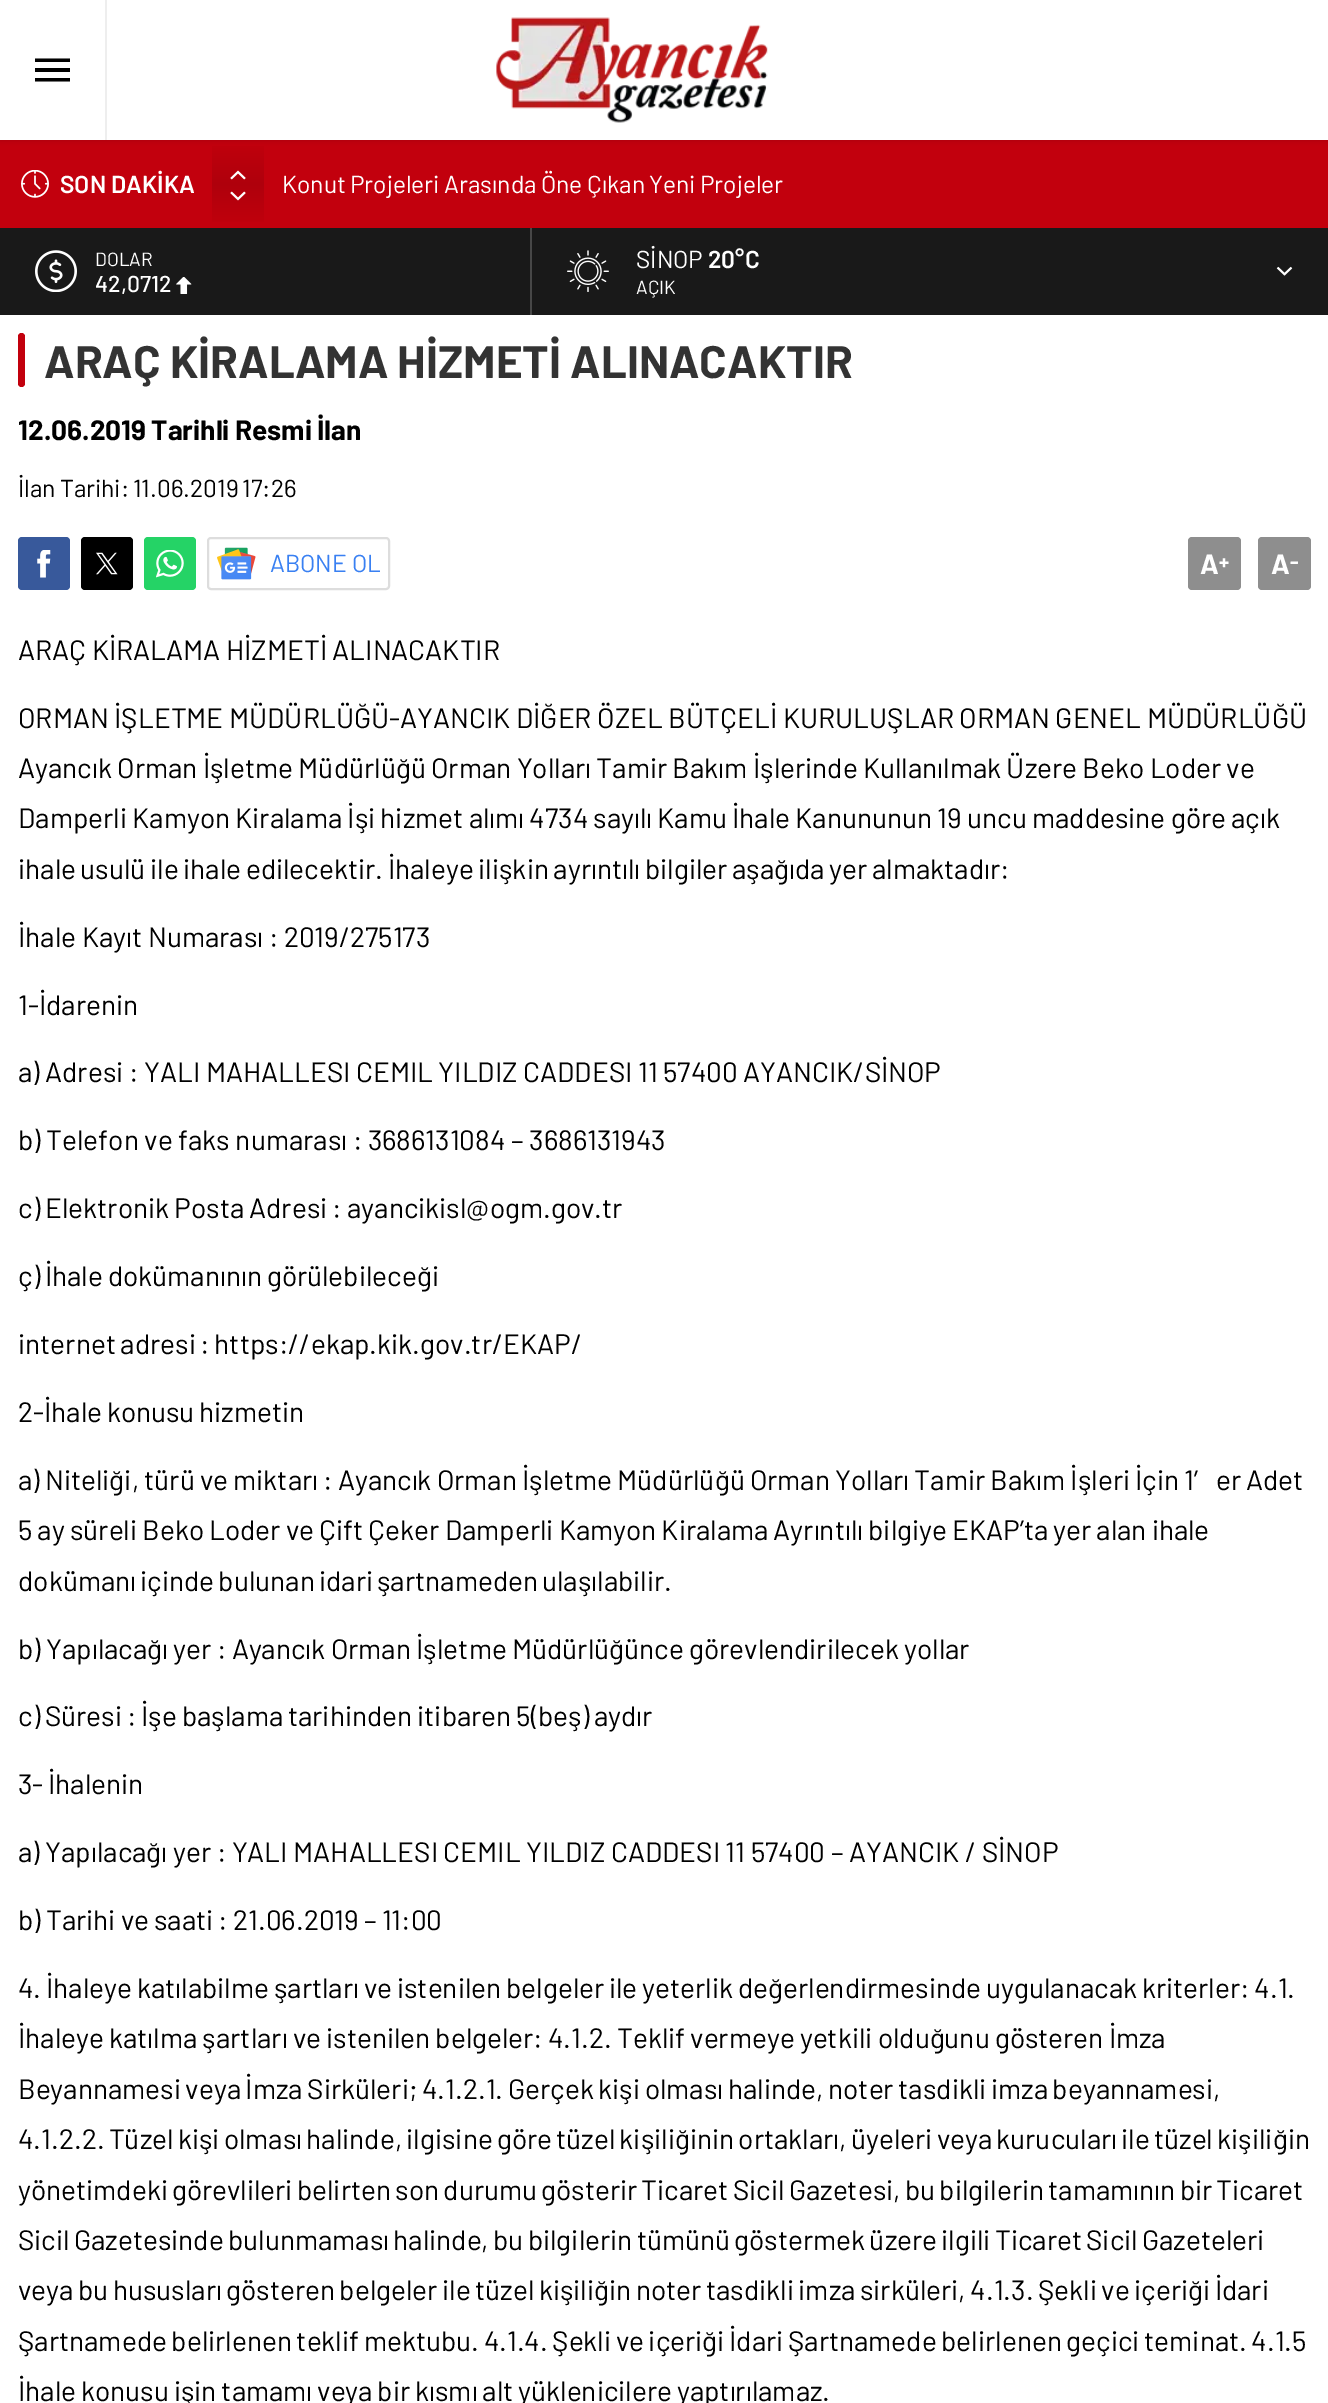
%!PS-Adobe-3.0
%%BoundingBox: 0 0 1328 2403
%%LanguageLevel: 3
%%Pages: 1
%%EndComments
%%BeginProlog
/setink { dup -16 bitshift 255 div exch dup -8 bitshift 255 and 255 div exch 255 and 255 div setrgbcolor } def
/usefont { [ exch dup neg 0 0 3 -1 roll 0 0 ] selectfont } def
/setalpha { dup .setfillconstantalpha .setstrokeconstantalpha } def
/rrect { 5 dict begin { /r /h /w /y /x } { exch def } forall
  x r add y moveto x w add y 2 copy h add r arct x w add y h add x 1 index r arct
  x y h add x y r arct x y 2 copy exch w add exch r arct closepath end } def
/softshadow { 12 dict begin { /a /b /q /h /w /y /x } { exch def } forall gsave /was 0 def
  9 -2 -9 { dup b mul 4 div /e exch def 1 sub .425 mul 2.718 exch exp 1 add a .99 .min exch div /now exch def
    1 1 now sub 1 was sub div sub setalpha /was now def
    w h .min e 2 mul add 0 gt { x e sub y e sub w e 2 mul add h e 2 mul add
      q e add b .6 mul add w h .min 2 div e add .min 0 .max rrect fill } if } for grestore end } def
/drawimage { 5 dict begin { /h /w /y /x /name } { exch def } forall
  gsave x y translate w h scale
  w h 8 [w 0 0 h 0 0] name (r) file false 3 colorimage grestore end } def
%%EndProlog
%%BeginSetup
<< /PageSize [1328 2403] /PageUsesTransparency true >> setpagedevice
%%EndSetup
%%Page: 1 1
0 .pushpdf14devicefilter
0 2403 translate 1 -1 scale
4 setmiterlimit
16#C2000D setink
0 0 1328 2403 rectfill
gsave 212 146 moveto 264 146 lineto 264 222 lineto 212 222 lineto closepath clip newpath
<< /ShadingType 2 /ColorSpace /DeviceRGB /Coords [238 140 238 228] /Extend [true true] /Function << /FunctionType 3 /Domain [0 1] /Functions [<< /FunctionType 2 /Domain [0 1] /C0 [0.761 0 0.051] /C1 [0.686 0 0.047] /N 1 >> << /FunctionType 2 /Domain [0 1] /C0 [0.686 0 0.047] /C1 [0.761 0 0.051] /N 1 >>] /Bounds [0.5] /Encode [0 1 0 1] >> >> shfill grestore
16#000000 setink
0 0 1328 140 0 2.5 0.15 softshadow
16#FFFFFF setink
0 0 1328 140 rectfill
16#EEEEEE setink
105 0 2 140 rectfill
16#000000 setink
35 81.5 moveto 70 81.5 lineto 70 78 lineto 35 78 lineto closepath 35 72 moveto 70 72 lineto 70 68 lineto 35 68 lineto closepath 35 58.5 moveto 35 62 lineto 70 62 lineto 70 58.5 lineto closepath fill
(img1.raw) 496 17 272 106 drawimage
(img2.raw) 21 170 28 28 drawimage
/Barlow-SemiBold 24.5 usefont
16#FFFFFF setink
60 193 moveto (SON DAKİKA) show
(img3.raw) 230 170 16 10 drawimage
(img4.raw) 230 191 16 10 drawimage
/Barlow-Regular 24.5 usefont
282 193 moveto -0.5 0 32 (Konut Projeleri Arasında Öne Çıkan Yeni Projeler) widthshow
16#191919 setink
0 228 530 87 rectfill
16#474747 setink
530 228 2 87 rectfill
(img5.raw) 35 250 42 42 drawimage
/Barlow-Regular 19 usefont
16#FFFFFF setink
95 266 moveto (DOLAR) show
/Barlow-Medium 23 usefont
95 292 moveto (42,0712) show
(img6.raw) 176 277 16 17 drawimage
16#191919 setink
532 228 796 87 rectfill
(img7.raw) 567 250 42 42 drawimage
/Barlow-Regular 24.5 usefont
16#FFFFFF setink
636 268 moveto (SİNOP) show
/Barlow-SemiBold 24.5 usefont
708 268 moveto (20°C) show
/Barlow-Regular 19 usefont
636 294 moveto (AÇIK) show
(img8.raw) 1276 266 17 10 drawimage
0 315 1328 2088 rectfill
16#C2000D setink
18 333 7 54 3.5 rrect fill
/Barlow-Bold 45.5 usefont
16#333333 setink
44 378 moveto (ARAÇ KİRALAMA HİZMETİ ALINACAKTIR) show
/Barlow-Bold 28 usefont
16#000000 setink
18 440 moveto -0.5 0 32 (12.06.2019 Tarihli Resmi İlan) widthshow
/Barlow-Regular 24.5 usefont
18 497 moveto -1 0 32 (İlan Tarihi: 11.06.2019 17:26) widthshow
16#38599B setink
18 537 52 53 4 rrect fill
(img9.raw) 37 550 14 28 drawimage
16#000000 setink
81 537 52 53 4 rrect fill
(img10.raw) 96 552 22 23 drawimage
16#25D366 setink
144 537 52 53 4 rrect fill
(img11.raw) 156 550 28 28 drawimage
(img12.raw) 217 547 39 33 drawimage
16#DDDDDD setink
2 setlinewidth
208 538 181 51 3 rrect stroke
16#3980F2 setink
270 572 moveto (ABONE OL) show
16#8E8E8E setink
1188 537 53 53 4 rrect fill
/Barlow-Bold 28 usefont
16#FFFFFF setink
1200 574 moveto (A) show
/Barlow-Bold 21 usefont
1219 569 moveto (+) show
16#8E8E8E setink
1258 537 53 53 4 rrect fill
/Barlow-Bold 28 usefont
16#FFFFFF setink
1271 574 moveto (A) show
/Barlow-Bold 21 usefont
1290 569 moveto (-) show
/Barlow-Regular 28 usefont
16#000000 setink
18 660 moveto (ARAÇ KİRALAMA HİZMETİ ALINACAKTIR) show
18 728 moveto (ORMAN İŞLETME MÜDÜRLÜĞÜ-AYANCIK DİĞER ÖZEL BÜTÇELİ KURULUŞLAR ORMAN GENEL MÜDÜRLÜĞÜ) show
18 778 moveto -0.25 0 32 (Ayancık Orman İşletme Müdürlüğü Orman Yolları Tamir Bakım İşlerinde Kullanılmak Üzere Beko Loder ve) widthshow
18 828 moveto -0.4 0 32 (Damperli Kamyon Kiralama İşi hizmet alımı 4734 sayılı Kamu İhale Kanununun 19 uncu maddesine göre açık) widthshow
18 879 moveto -1 0 32 (ihale usulü ile ihale edilecektir. İhaleye ilişkin ayrıntılı bilgiler aşağıda yer almaktadır:) widthshow
[
    [(İhale Kayıt Numarası : 2019/275173) 18 947]
    [(1-İdarenin) 18 1015]
    [(a\) Adresi : YALI MAHALLESI CEMIL YILDIZ CADDESI 11 57400 AYANCIK/SİNOP) 18 1082]
    [(b\) Telefon ve faks numarası : 3686131084 – 3686131943) 18 1150]
] { aload pop moveto show } forall
18 1218 moveto -0.5 0 32 (c\) Elektronik Posta Adresi :) widthshow
347 1218 moveto (ayancikisl@ogm.gov.tr) show
18 1286 moveto -0.75 0 32 (ç\) İhale dokümanının görülebileceği) widthshow
18 1354 moveto -1 0 32 (internet adresi : https://ekap.kik.gov.tr/EKAP/) widthshow
18 1422 moveto -1 0 32 (2-İhale konusu hizmetin) widthshow
18 1490 moveto -0.5 0 32 (a\) Niteliği, türü ve miktarı : Ayancık Orman İşletme Müdürlüğü Orman Yolları Tamir Bakım İşleri İçin 1′ er Adet) widthshow
18 1540 moveto -0.5 0 32 (5 ay süreli Beko Loder ve Çift Çeker Damperli Kamyon Kiralama Ayrıntılı bilgiye EKAP’ta yer alan ihale) widthshow
18 1591 moveto -1.5 0 32 (dokümanı içinde bulunan idari şartnameden ulaşılabilir.) widthshow
18 1659 moveto -0.25 0 32 (b\) Yapılacağı yer : Ayancık Orman İşletme Müdürlüğünce görevlendirilecek yollar) widthshow
18 1726 moveto -0.75 0 32 (c\) Süresi : İşe başlama tarihinden itibaren 5\(beş\) aydır) widthshow
18 1794 moveto -1 0 32 (3- İhalenin) widthshow
18 1862 moveto (a\) Yapılacağı yer : YALI MAHALLESI CEMIL YILDIZ CADDESI 11 57400 – AYANCIK / SİNOP) show
18 1930 moveto -0.5 0 32 (b\) Tarihi ve saati : 21.06.2019 – 11:00) widthshow
18 1998 moveto -0.75 0 32 (4. İhaleye katılabilme şartları ve istenilen belgeler ile yeterlik değerlendirmesinde uygulanacak kriterler: 4.1.) widthshow
18 2048 moveto -0.5 0 32 (İhaleye katılma şartları ve istenilen belgeler: 4.1.2. Teklif vermeye yetkili olduğunu gösteren İmza) widthshow
18 2099 moveto -1 0 32 (Beyannamesi veya İmza Sirküleri; 4.1.2.1. Gerçek kişi olması halinde, noter tasdikli imza beyannamesi,) widthshow
18 2149 moveto -1.4 0 32 (4.1.2.2. Tüzel kişi olması halinde, ilgisine göre tüzel kişiliğinin ortakları, üyeleri veya kurucuları ile tüzel kişiliğin) widthshow
18 2200 moveto -1.4 0 32 (yönetimdeki görevlileri belirten son durumu gösterir Ticaret Sicil Gazetesi, bu bilgilerin tamamının bir Ticaret) widthshow
18 2250 moveto -1.4 0 32 (Sicil Gazetesinde bulunmaması halinde, bu bilgilerin tümünü göstermek üzere ilgili Ticaret Sicil Gazeteleri) widthshow
18 2300 moveto -1.1 0 32 (veya bu hususları gösteren belgeler ile tüzel kişiliğin noter tasdikli imza sirküleri, 4.1.3. Şekli ve içeriği İdari) widthshow
18 2351 moveto -1 0 32 (Şartnamede belirlenen teklif mektubu. 4.1.4. Şekli ve içeriği İdari Şartnamede belirlenen geçici teminat. 4.1.5) widthshow
18 2401 moveto -0.75 0 32 (İhale konusu işin tamamı veya bir kısmı alt yüklenicilere yaptırılamaz.) widthshow
.poppdf14devicefilter showpage
%%EOF
